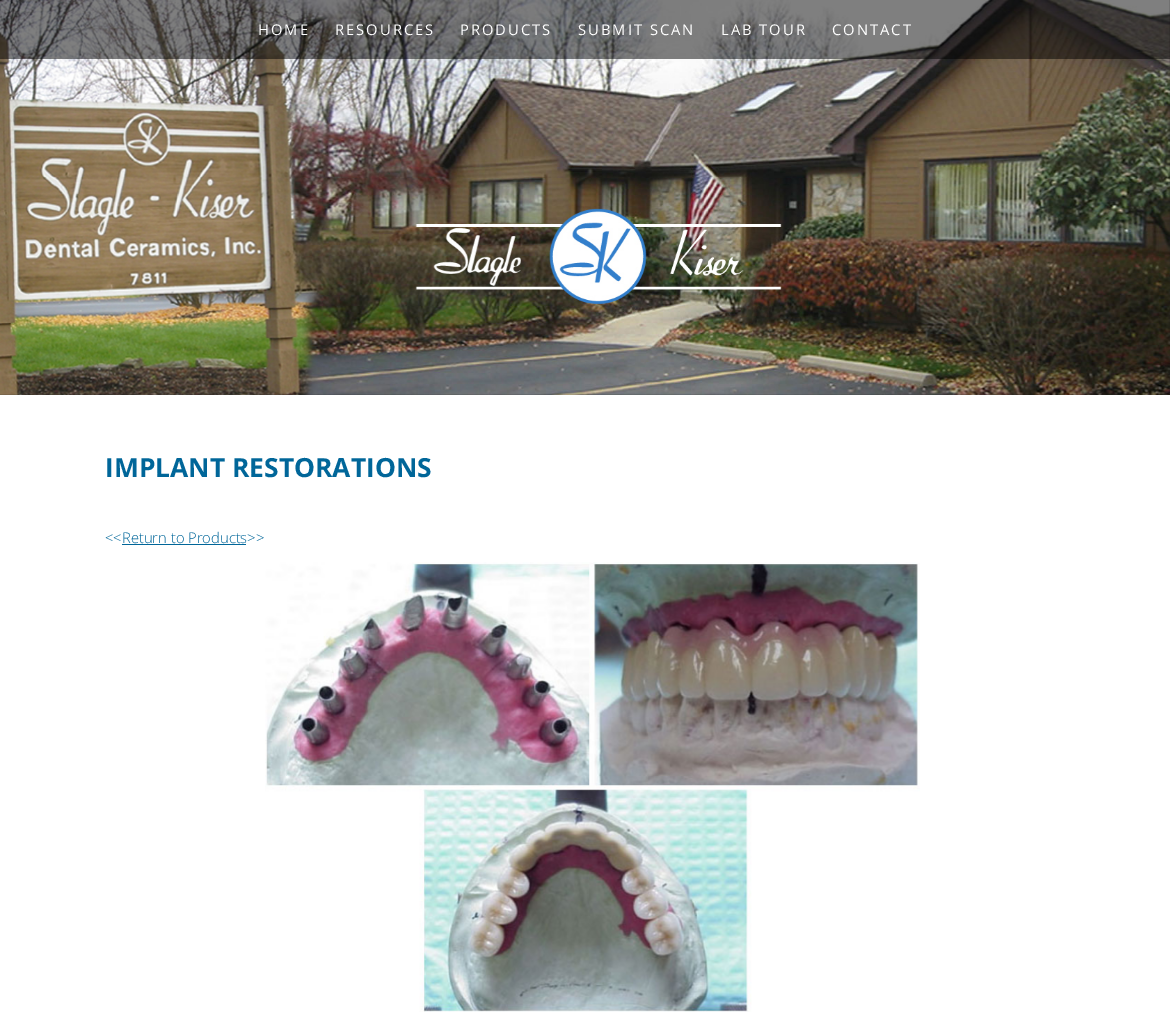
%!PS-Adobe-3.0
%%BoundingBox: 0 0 1170 1013
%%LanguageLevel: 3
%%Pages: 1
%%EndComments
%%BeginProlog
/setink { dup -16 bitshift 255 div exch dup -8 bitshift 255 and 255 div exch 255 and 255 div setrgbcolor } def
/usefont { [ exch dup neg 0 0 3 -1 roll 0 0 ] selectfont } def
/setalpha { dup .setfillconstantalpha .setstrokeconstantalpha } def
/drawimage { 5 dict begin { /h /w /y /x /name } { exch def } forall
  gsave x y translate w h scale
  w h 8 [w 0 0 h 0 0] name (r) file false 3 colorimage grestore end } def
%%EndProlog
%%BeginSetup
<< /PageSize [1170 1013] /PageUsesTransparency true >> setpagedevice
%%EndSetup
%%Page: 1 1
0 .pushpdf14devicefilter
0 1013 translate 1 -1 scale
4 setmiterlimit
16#FFFFFF setink
0 0 1170 1013 rectfill
(img1.raw) 0 0 1170 395 drawimage
0.5 setalpha
16#000000 setink
0 0 1170 59 rectfill
/OpenSans-Regular 14.75 usefont
1 setalpha
16#FFFFFF setink
258 35 moveto 2 0 (HOME) ashow
335 35 moveto 2 0 (RESOURCES) ashow
460 35 moveto 2 0 (PRODUCTS) ashow
578 35 moveto 2 0 (SUBMIT SCAN) ashow
721 35 moveto 2 0 (LAB TOUR) ashow
832 35 moveto 2 0 (CONTACT) ashow
/OpenSans-Bold 26.4 usefont
16#006699 setink
105 477 moveto (IMPLANT RESTORATIONS) show
/OpenSans-Light 14.75 usefont
105 543 moveto (<<Return to Products>>) show
122 544 124 1 rectfill
(img2.raw) 265 562 655 450 drawimage
.poppdf14devicefilter showpage
%%EOF
